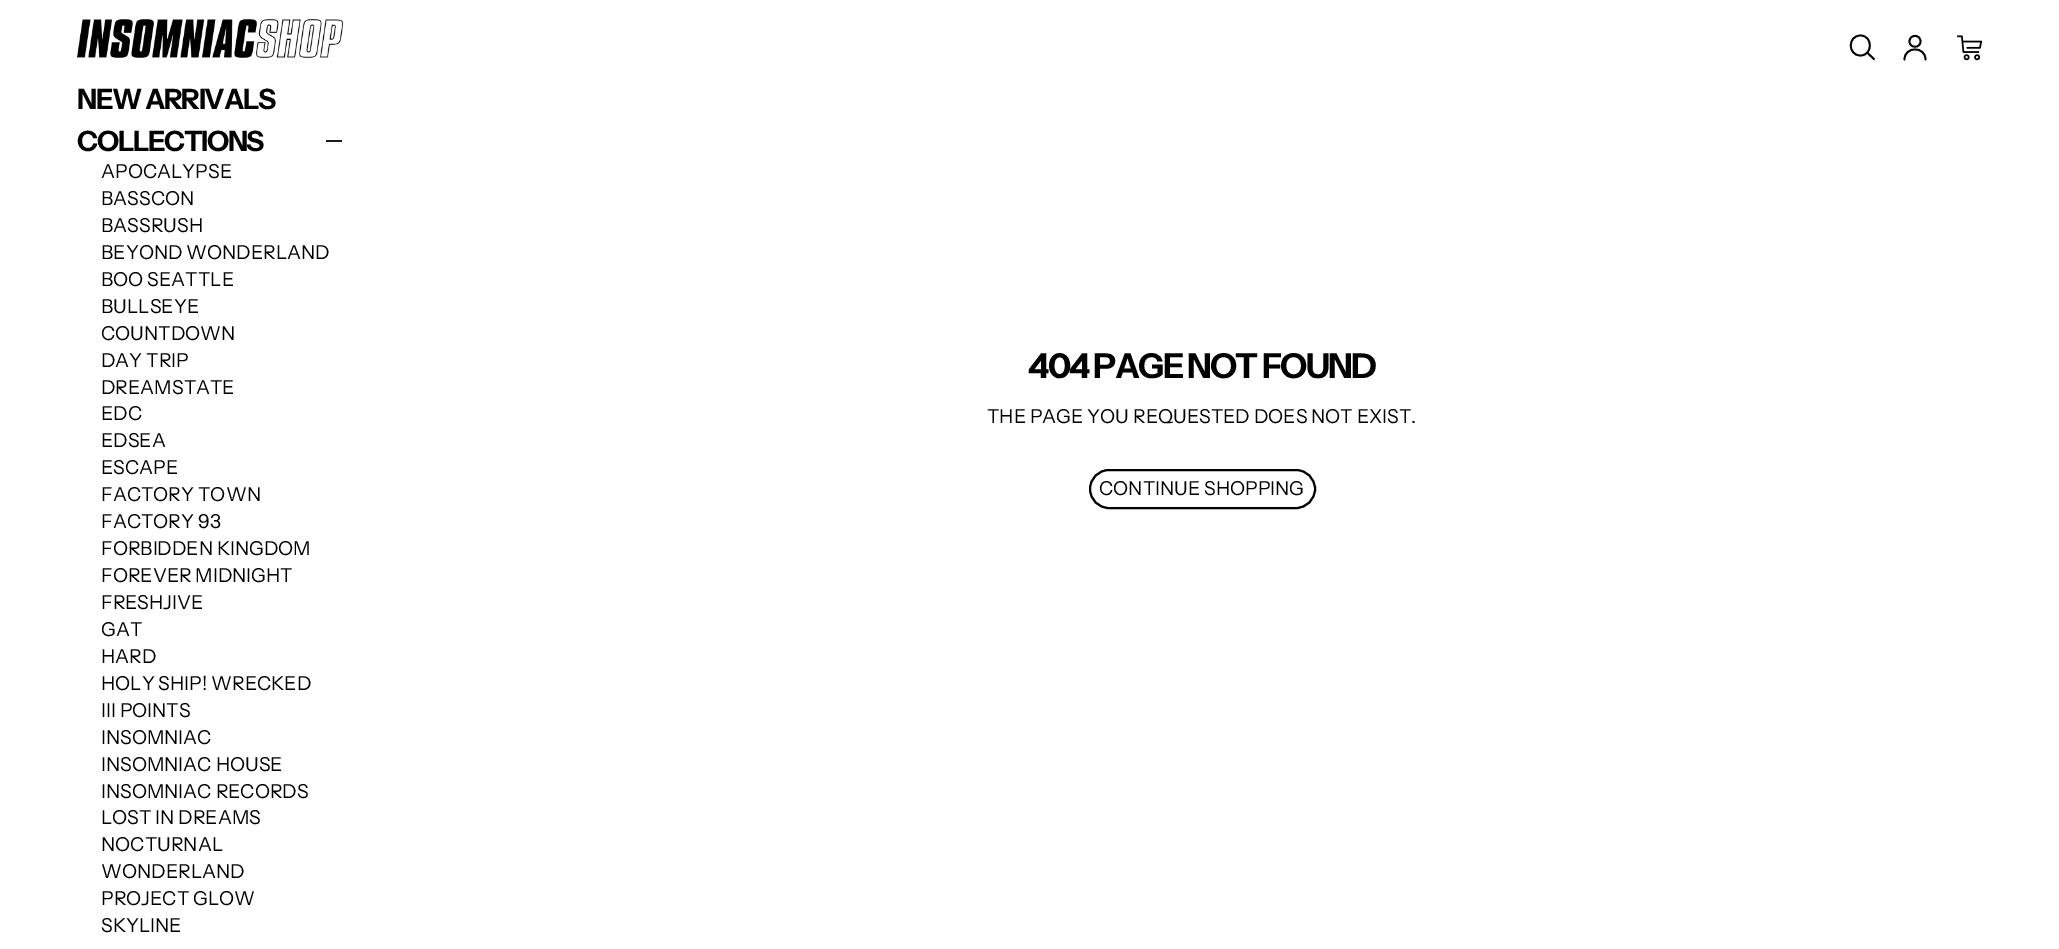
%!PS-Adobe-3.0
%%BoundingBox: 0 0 2059 949
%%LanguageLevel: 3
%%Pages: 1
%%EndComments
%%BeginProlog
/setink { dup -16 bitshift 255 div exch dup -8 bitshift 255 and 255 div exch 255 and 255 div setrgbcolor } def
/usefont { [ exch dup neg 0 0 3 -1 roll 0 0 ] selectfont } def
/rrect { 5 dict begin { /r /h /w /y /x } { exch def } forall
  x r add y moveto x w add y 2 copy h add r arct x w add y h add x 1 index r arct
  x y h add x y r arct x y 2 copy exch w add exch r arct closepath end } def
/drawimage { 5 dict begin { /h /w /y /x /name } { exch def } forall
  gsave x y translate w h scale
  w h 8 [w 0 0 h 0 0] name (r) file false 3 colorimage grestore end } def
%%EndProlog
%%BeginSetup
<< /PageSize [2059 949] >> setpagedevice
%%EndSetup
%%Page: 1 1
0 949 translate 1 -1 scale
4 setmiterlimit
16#FFFFFF setink
0 0 2059 949 rectfill
(img1.raw) 77 19 266 39 drawimage
/InstrumentSans-Bold 28 usefont
16#000000 setink
77 109 moveto -1.4 0 (NEW ARRIVALS) ashow
77 151 moveto -1.4 0 (COLLECTIONS) ashow
16#1A1A1A setink
326 140 16 2 rectfill
/InstrumentSans-Regular 19.25 usefont
16#000000 setink
[
    [(APOCALYPSE) 101 178]
    [(BASSCON) 101 205]
    [(BASSRUSH) 101 232]
    [(BEYOND WONDERLAND) 101 259]
    [(BOO SEATTLE) 101 286]
    [(BULLSEYE) 101 313]
    [(COUNTDOWN) 101 340]
    [(DAY TRIP) 101 367]
    [(DREAMSTATE) 101 394]
    [(EDC) 101 420]
    [(EDSEA) 101 447]
    [(ESCAPE) 101 474]
    [(FACTORY TOWN) 101 501]
    [(FACTORY 93) 101 528]
    [(FORBIDDEN KINGDOM) 101 555]
    [(FOREVER MIDNIGHT) 101 582]
    [(FRESHJIVE) 101 609]
    [(GAT) 101 636]
    [(HARD) 101 663]
    [(HOLY SHIP! WRECKED) 101 690]
    [(III POINTS) 101 717]
    [(INSOMNIAC) 101 744]
    [(INSOMNIAC HOUSE) 101 771]
    [(INSOMNIAC RECORDS) 101 798]
    [(LOST IN DREAMS) 101 824]
    [(NOCTURNAL) 101 851]
    [(WONDERLAND) 101 878]
    [(PROJECT GLOW) 101 905]
    [(SKYLINE) 101 932]
] { aload pop moveto show } forall
1.8 setlinewidth
1860.5 55.5 moveto 1873 55.5 1873 35.5 1860.5 35.5 curveto 1847.5 35.5 1847.5 55.5 1860.5 55.5 curveto closepath 1867 52.5 moveto 1874.5 59.5 lineto stroke
1 setlinecap
1 setlinejoin
1909.5 41.5 moveto 1909.5 48.5 1920.5 48.5 1920.5 41.5 curveto 1920.5 34 1909.5 34 1909.5 41.5 curveto closepath 1904.5 59.5 moveto 1904.5 46 1925.5 46 1925.5 59.5 curveto stroke
(img2.raw) 1957 35 26 26 drawimage
/InstrumentSans-Bold 34.25 usefont
1028 378 moveto -1.75 0 (404 PAGE NOT FOUND) ashow
/InstrumentSans-Regular 19.25 usefont
987 423 moveto (THE PAGE YOU REQUESTED DOES NOT EXIST.) show
2 setlinewidth
0 setlinecap
0 setlinejoin
1090 470 225 38 19 rrect stroke
1099 495 moveto (CONTINUE SHOPPING) show
showpage
%%EOF
